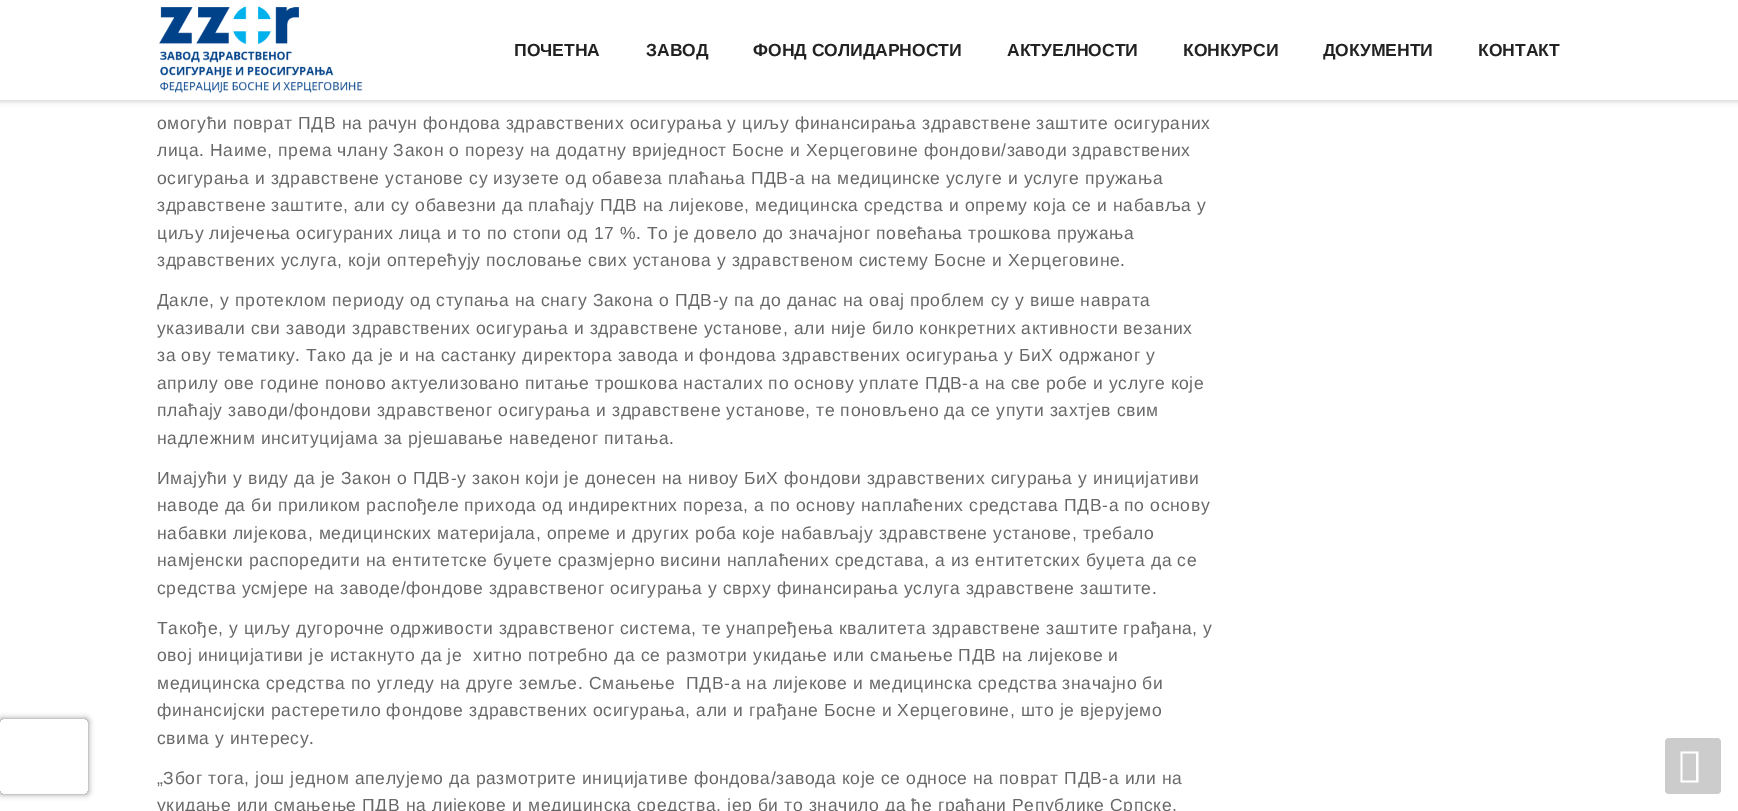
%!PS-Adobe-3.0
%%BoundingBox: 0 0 1738 811
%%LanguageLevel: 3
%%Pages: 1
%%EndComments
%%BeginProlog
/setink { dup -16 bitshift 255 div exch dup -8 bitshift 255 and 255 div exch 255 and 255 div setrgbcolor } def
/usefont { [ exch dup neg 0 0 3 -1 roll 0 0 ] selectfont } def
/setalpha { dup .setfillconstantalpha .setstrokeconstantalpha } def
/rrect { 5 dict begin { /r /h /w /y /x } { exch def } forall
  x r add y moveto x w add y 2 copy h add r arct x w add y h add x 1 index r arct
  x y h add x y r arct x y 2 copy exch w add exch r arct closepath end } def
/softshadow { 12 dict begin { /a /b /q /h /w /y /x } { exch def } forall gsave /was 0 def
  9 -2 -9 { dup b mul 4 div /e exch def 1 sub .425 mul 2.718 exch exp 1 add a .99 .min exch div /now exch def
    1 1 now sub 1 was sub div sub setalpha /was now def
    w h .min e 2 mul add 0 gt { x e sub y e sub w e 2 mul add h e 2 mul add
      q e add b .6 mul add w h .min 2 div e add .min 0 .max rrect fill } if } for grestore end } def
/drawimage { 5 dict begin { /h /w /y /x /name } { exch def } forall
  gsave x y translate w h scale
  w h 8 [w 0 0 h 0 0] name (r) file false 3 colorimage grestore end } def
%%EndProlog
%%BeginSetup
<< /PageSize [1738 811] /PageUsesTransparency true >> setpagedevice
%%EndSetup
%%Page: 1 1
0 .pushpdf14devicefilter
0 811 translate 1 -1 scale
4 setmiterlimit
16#FFFFFF setink
0 0 1738 811 rectfill
gsave
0 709 moveto 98 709 lineto 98 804 lineto 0 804 lineto closepath 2.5 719 moveto 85.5 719 lineto 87 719 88 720 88 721.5 curveto 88 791.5 lineto 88 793 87 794 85.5 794 curveto 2.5 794 lineto 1 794 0 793 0 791.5 curveto 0 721.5 lineto 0 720 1 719 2.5 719 curveto closepath eoclip newpath
16#808080 setink
0 719 88 75 2.5 3 1 softshadow
grestore
16#000000 setink
0 1 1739 100 0 3 0.2 softshadow
16#FFFFFF setink
0 0 1738 100 rectfill
(img1.raw) 159 6 204 87 drawimage
/LiberationSans-Bold 17.5 usefont
16#222222 setink
[
    [(ПОЧЕТНА) 514 56]
    [(ЗАВОД) 646 56]
    [(ФОНД СОЛИДАРНОСТИ) 753 56]
    [(АКТУЕЛНОСТИ) 1007 56]
    [(КОНКУРСИ) 1183 56]
    [(ДОКУМЕНТИ) 1323 56]
    [(КОНТАКТ) 1478 56]
] { aload pop moveto show } forall
/LiberationSans-Regular 17.5 usefont
16#676767 setink
157 129 moveto 0.62 0 (омогући поврат ПДВ на рачун фондова здравствених осигурања у циљу финансирања здравствене заштите осигураних) ashow
157 156 moveto 0.62 0 (лица. Наиме, према члану Закон о порезу на додатну вриједност Босне и Херцеговине фондови/заводи здравствених) ashow
157 184 moveto 0.62 0 (осигурања и здравствене установе су изузете од обавеза плаћања ПДВ-а на медицинске услуге и услуге пружања) ashow
157 211 moveto 0.62 0 (здравствене заштите, али су обавезни да плаћају ПДВ на лијекове, медицинска средства и опрему која се и набавља у) ashow
157 239 moveto 0.62 0 (циљу лијечења осигураних лица и то по стопи од 17 %. То је довело до значајног повећања трошкова пружања) ashow
157 266 moveto 0.62 0 (здравствених услуга, који оптерећују пословање свих установа у здравственом систему Босне и Херцеговине.) ashow
157 306 moveto 0.62 0 (Дакле, у протеклом периоду од ступања на снагу Закона о ПДВ-у па до данас на овај проблем су у више наврата) ashow
157 334 moveto 0.62 0 (указивали сви заводи здравствених осигурања и здравствене установе, али није било конкретних активности везаних) ashow
157 361 moveto 0.62 0 (за ову тематику. Тако да је и на састанку директора завода и фондова здравствених осигурања у БиХ одржаног у) ashow
157 389 moveto 0.62 0 (априлу ове године поново актуелизовано питање трошкова насталих по основу уплате ПДВ-а на све робе и услуге које) ashow
157 416 moveto 0.62 0 (плаћају заводи/фондови здравственог осигурања и здравствене установе, те поновљено да се упути захтјев свим) ashow
157 444 moveto 0.62 0 (надлежним инситуцијама за рјешавање наведеног питања.) ashow
157 484 moveto 0.62 0 (Имајући у виду да је Закон о ПДВ-у закон који је донесен на нивоу БиХ фондови здравствених сигурања у иницијативи) ashow
157 511 moveto 0.62 0 (наводе да би приликом распођеле прихода од индиректних пореза, а по основу наплаћених средстава ПДВ-а по основу) ashow
157 539 moveto 0.62 0 (набавки лијекова, медицинских материјала, опреме и других роба које набављају здравствене установе, требало) ashow
157 566 moveto 0.62 0 (намјенски распоредити на ентитетске буџете сразмјерно висини наплаћених средстава, а из ентитетских буџета да се) ashow
157 594 moveto 0.62 0 (средства усмјере на заводе/фондове здравственог осигурања у сврху финансирања услуга здравствене заштите.) ashow
157 634 moveto 0.62 0 (Такође, у циљу дугорочне одрживости здравственог система, те унапређења квалитета здравствене заштите грађана, у) ashow
157 661 moveto 0.62 0 (овој иницијативи је истакнуто да је  хитно потребно да се размотри укидање или смањење ПДВ на лијекове и) ashow
157 689 moveto 0.62 0 (медицинска средства по угледу на друге земље. Смањење  ПДВ-а на лијекове и медицинска средства значајно би) ashow
157 716 moveto 0.62 0 (финансијски растеретило фондове здравствених осигурања, али и грађане Босне и Херцеговине, што је вјерујемо) ashow
157 744 moveto 0.62 0 (свима у интересу.) ashow
157 784 moveto 0.62 0 („Због тога, још једном апелујемо да размотрите иницијативе фондова/завода које се односе на поврат ПДВ-а или на) ashow
157 811 moveto 0.62 0 (укидање или смањење ПДВ на лијекове и медицинска средства, јер би то значило да ће грађани Републике Српске,) ashow
16#CCCCCC setink
1665 738 56 56 4 rrect fill
16#FFFFFF setink
1680.5 782.5 moveto 1680.5 751.5 lineto 1698.5 751.5 lineto 1698.5 782.5 lineto closepath 1682.5 780.5 moveto 1696 780.5 lineto 1696 753.5 lineto 1682.5 753.5 lineto closepath fill
.poppdf14devicefilter showpage
%%EOF
